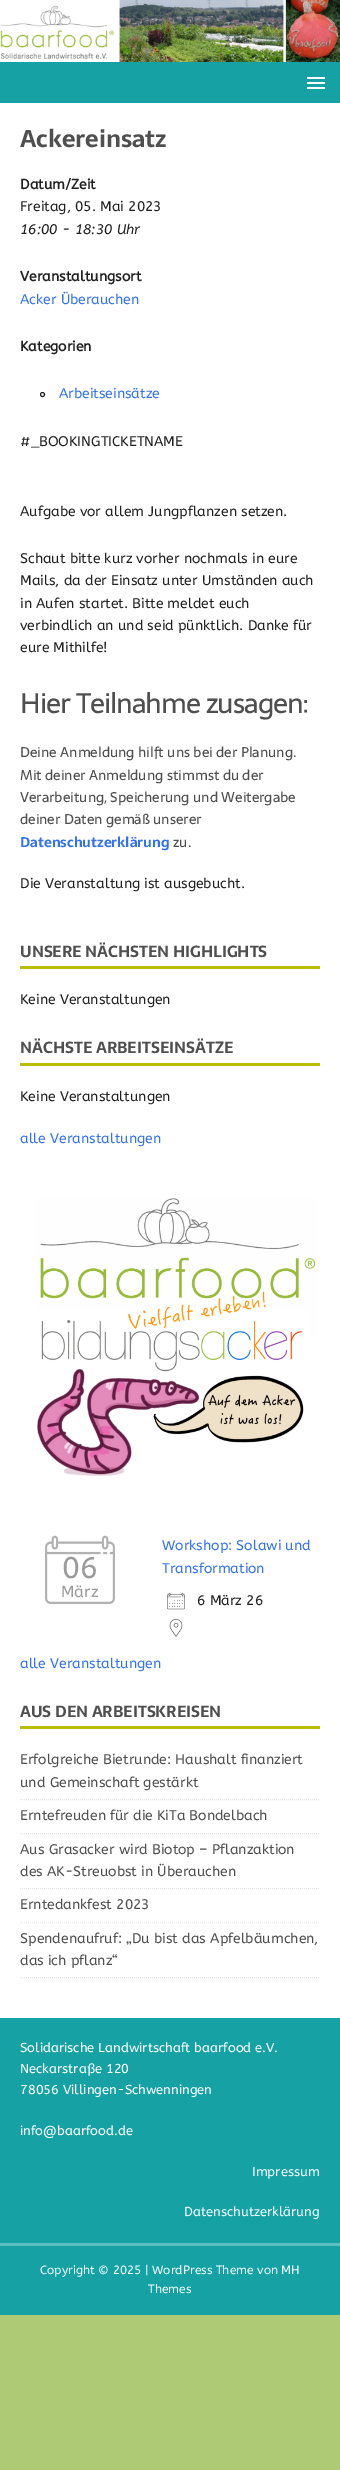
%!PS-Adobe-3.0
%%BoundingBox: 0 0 340 2470
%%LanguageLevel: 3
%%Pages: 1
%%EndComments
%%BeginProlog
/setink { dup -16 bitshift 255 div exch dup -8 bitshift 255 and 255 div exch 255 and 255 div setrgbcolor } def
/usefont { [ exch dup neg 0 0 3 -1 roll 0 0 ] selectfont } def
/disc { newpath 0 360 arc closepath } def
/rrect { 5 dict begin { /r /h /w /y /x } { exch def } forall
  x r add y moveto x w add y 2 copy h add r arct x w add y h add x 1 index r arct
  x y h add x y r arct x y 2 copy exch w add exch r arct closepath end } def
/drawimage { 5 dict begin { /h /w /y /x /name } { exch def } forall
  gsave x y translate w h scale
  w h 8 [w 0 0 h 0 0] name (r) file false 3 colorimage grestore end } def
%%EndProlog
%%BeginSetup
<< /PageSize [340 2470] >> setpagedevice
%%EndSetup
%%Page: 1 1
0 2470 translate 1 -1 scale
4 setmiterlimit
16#AECA75 setink
0 0 340 2470 rectfill
(img1.raw) 0 0 340 62 drawimage
16#16A1A4 setink
0 62 340 41 rectfill
16#FFFFFF setink
307 77 18 2 1 rrect fill
307 82 18 2 1 rrect fill
307 87 18 2 1 rrect fill
0 103 340 1915 rectfill
/Sarala-Bold 24 usefont
16#4F4F4F setink
20 147 moveto (Ackereinsatz) show
/ABeeZee-Bold 14 usefont
16#212121 setink
20 189 moveto (Datum/Zeit) show
/ABeeZee-Regular 14 usefont
20 211 moveto (Freitag, 05. Mai 2023) show
/ABeeZee-Italic 14 usefont
20 234 moveto (16:00 - 18:30 Uhr) show
/ABeeZee-Bold 14 usefont
20 281 moveto (Veranstaltungsort) show
/ABeeZee-Regular 14 usefont
16#3372F0 setink
20 304 moveto (Acker Überauchen) show
/ABeeZee-Bold 14 usefont
16#212121 setink
20 351 moveto (Kategorien) show
42.5 394.5 2 disc stroke
/ABeeZee-Regular 14 usefont
16#3372F0 setink
59 398 moveto (Arbeitseinsätze) show
16#212121 setink
[
    [(#_BOOKINGTICKETNAME) 20 446]
    [(Aufgabe vor allem Jungpflanzen setzen.) 20 516]
    [(Schaut bitte kurz vorher nochmals in eure) 20 563]
    [(Mails, da der Einsatz unter Umständen auch) 20 585]
    [(in Aufen startet. Bitte meldet euch) 20 608]
    [(verbindlich an und seid pünktlich. Danke für) 20 630]
    [(eure Mithilfe!) 20 652]
] { aload pop moveto show } forall
/Sarala-Regular 28 usefont
16#4F4F4F setink
20 713 moveto -1 0 (Hier Teilnahme zusagen:) ashow
/Sarala-Regular 14 usefont
[
    [(Deine Anmeldung hilft uns bei der Planung.) 20 757]
    [(Mit deiner Anmeldung stimmst du der) 20 780]
    [(Verarbeitung, Speicherung und Weitergabe) 20 802]
    [(deiner Daten gemäß unserer) 20 824]
] { aload pop moveto show } forall
/Sarala-Bold 14 usefont
16#3372F0 setink
20 847 moveto (Datenschutzerklärung) show
/Sarala-Regular 14 usefont
16#4F4F4F setink
173 847 moveto (zu.) show
/ABeeZee-Regular 14 usefont
16#212121 setink
20 888 moveto (Die Veranstaltung ist ausgebucht.) show
16#BBBD00 setink
20 966 300 3 rectfill
/Sarala-Bold 16 usefont
16#4F4F4F setink
20 957 moveto (UNSERE NÄCHSTEN HIGHLIGHTS) show
/ABeeZee-Regular 14 usefont
16#212121 setink
20 1004 moveto (Keine Veranstaltungen) show
16#BBBD00 setink
20 1063 300 3 rectfill
/Sarala-Bold 16 usefont
16#4F4F4F setink
20 1053 moveto (NÄCHSTE ARBEITSEINSÄTZE) show
/ABeeZee-Regular 14 usefont
16#212121 setink
20 1101 moveto (Keine Veranstaltungen) show
16#3372F0 setink
20 1143 moveto (alle Veranstaltungen) show
(img2.raw) 36 1198 280 278 drawimage
(img3.raw) 45 1535 70 70 drawimage
/ABeeZee-Regular 30 usefont
16#9B9B9B setink
62 1578 moveto (06) show
/ABeeZee-Regular 16 usefont
61 1597 moveto (März) show
/ABeeZee-Regular 14 usefont
16#3372F0 setink
162 1550 moveto (Workshop: Solawi und) show
162 1573 moveto (Transformation) show
(img4.raw) 167 1592 18 18 drawimage
16#212121 setink
197 1605 moveto (6 März 26) show
(img5.raw) 169 1619 14 18 drawimage
16#3372F0 setink
20 1668 moveto (alle Veranstaltungen) show
16#BBBD00 setink
20 1726 300 3 rectfill
/Sarala-Bold 16 usefont
16#4F4F4F setink
20 1717 moveto (AUS DEN ARBEITSKREISEN) show
16#E5E5E5 setink
[1 1] 0 setdash
20 1799.5 moveto 320 1799.5 lineto stroke
/ABeeZee-Regular 14 usefont
16#4F4F4F setink
20 1764 moveto (Erfolgreiche Bietrunde: Haushalt finanziert) show
20 1787 moveto (und Gemeinschaft gestärkt) show
16#E5E5E5 setink
20 1833.5 moveto 320 1833.5 lineto stroke
16#4F4F4F setink
20 1820 moveto (Erntefreuden für die KiTa Bondelbach) show
16#E5E5E5 setink
20 1888.5 moveto 320 1888.5 lineto stroke
16#4F4F4F setink
20 1854 moveto (Aus Grasacker wird Biotop – Pflanzaktion) show
20 1876 moveto (des AK-Streuobst in Überauchen) show
16#E5E5E5 setink
20 1922.5 moveto 320 1922.5 lineto stroke
16#4F4F4F setink
20 1909 moveto (Erntedankfest 2023) show
16#E5E5E5 setink
20 1977.5 moveto 320 1977.5 lineto stroke
16#4F4F4F setink
20 1943 moveto (Spendenaufruf: „Du bist das Apfelbäumchen,) show
20 1965 moveto (das ich pflanz“) show
16#16A1A4 setink
0 2018 340 225 rectfill
/ABeeZee-Regular 13 usefont
16#FFFFFF setink
[
    [(Solidarische Landwirtschaft baarfood e.V.) 20 2052]
    [(Neckarstraße 120) 20 2073]
    [(78056 Villingen-Schwenningen) 20 2094]
    [(info@baarfood.de) 20 2135]
] { aload pop moveto show } forall
16#F2FFFF setink
252 2176 moveto (Impressum) show
184 2216 moveto (Datenschutzerklärung) show
16#16A1A4 setink
0 2246 340 69 rectfill
16#5CBDBF setink
0 2243 340 3 rectfill
/ABeeZee-Regular 12 usefont
16#F2FFFF setink
40 2274 moveto (Copyright © 2025 | WordPress Theme von MH) show
148 2293 moveto (Themes) show
showpage
%%EOF
